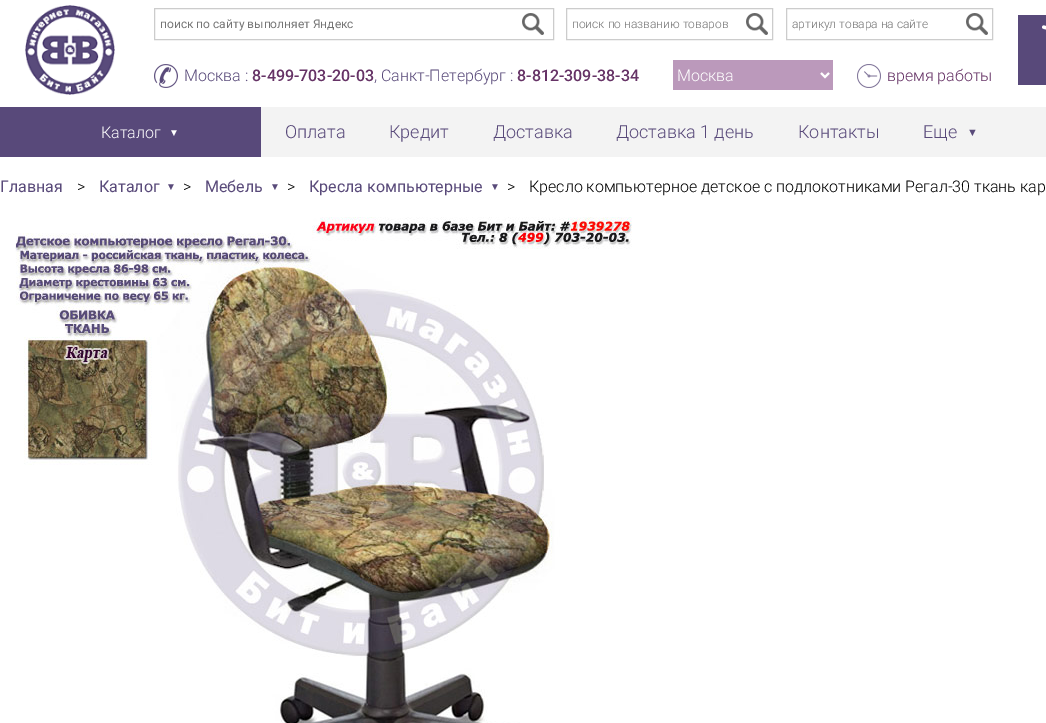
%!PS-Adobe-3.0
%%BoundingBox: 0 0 1046 723
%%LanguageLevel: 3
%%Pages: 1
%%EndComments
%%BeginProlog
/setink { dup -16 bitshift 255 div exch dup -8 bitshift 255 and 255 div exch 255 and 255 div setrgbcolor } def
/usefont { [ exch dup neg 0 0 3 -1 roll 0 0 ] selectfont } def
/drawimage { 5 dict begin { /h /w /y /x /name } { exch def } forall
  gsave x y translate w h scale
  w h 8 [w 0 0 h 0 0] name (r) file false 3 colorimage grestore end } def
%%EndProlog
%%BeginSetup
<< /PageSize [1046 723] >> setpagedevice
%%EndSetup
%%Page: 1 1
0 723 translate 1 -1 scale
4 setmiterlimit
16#FFFFFF setink
0 0 1046 723 rectfill
(img1.raw) 25 5 90 90 drawimage
16#CCCCCC setink
154.5 8.5 399 31 rectstroke
/Roboto-Regular 12 usefont
16#757575 setink
160 28 moveto (поиск по сайту выполняет Яндекс) show
(img2.raw) 522 13 22 22 drawimage
16#CCCCCC setink
566.5 8.5 206 31 rectstroke
/Roboto-Light 12 usefont
16#757575 setink
572 28 moveto (поиск по названию товаров) show
(img2.raw) 746 13 22 22 drawimage
16#CCCCCC setink
786.5 8.5 206 31 rectstroke
16#757575 setink
792 28 moveto (артикул товара на сайте) show
(img2.raw) 966 13 22 22 drawimage
(img3.raw) 154 64 24 24 drawimage
/Roboto-Light 16 usefont
16#594A7A setink
184 81 moveto (Москва :) show
/Roboto-Medium 16 usefont
16#663366 setink
252 81 moveto (8-499-703-20-03) show
/Roboto-Light 16 usefont
16#594A7A setink
374 81 moveto (, Санкт-Петербург :) show
/Roboto-Medium 16 usefont
16#663366 setink
517 81 moveto (8-812-309-38-34) show
16#BB99BB setink
673 60 160 30 rectfill
16#FFFFFF setink
2 setlinewidth
821 73 moveto 825 77 lineto 829 73 lineto stroke
/Roboto-Light 16 usefont
677 81 moveto (Москва) show
(img4.raw) 857 64 24 24 drawimage
16#663366 setink
887 81 moveto (время работы) show
16#58497A setink
1018 15 28 70 rectfill
(img5.raw) 1042 25 4 5 drawimage
16#F3F3F3 setink
261 107 785 50 rectfill
16#58497A setink
0 107 261 50 rectfill
16#FFFFFF setink
101 138 moveto (Каталог) show
/LiberationSans-Regular 10 usefont
169 136 moveto (▼) show
/Roboto-Light 18 usefont
16#594A7A setink
[
    [(Оплата) 285 138]
    [(Кредит) 389 138]
    [(Доставка) 493 138]
    [(Доставка 1 день) 616 138]
    [(Контакты) 798 138]
    [(Еще) 923 138]
] { aload pop moveto show } forall
/LiberationSans-Regular 11 usefont
967 136 moveto (▼) show
/Roboto-Regular 16 usefont
0 192 moveto (Главная) show
/Roboto-Light 16 usefont
16#000000 setink
77 192 moveto (>) show
/Roboto-Regular 16 usefont
16#594A7A setink
99 192 moveto (Каталог) show
/LiberationSans-Regular 10 usefont
166 190 moveto (▼) show
/Roboto-Light 16 usefont
16#000000 setink
183 192 moveto (>) show
/Roboto-Regular 16 usefont
16#594A7A setink
205 192 moveto (Мебель) show
/LiberationSans-Regular 10 usefont
270 190 moveto (▼) show
/Roboto-Light 16 usefont
16#000000 setink
287 192 moveto (>) show
/Roboto-Regular 16 usefont
16#594A7A setink
309 192 moveto (Кресла компьютерные) show
/LiberationSans-Regular 10 usefont
490 190 moveto (▼) show
/Roboto-Light 16 usefont
16#000000 setink
507 192 moveto (>) show
529 192 moveto (Кресло компьютерное детское с подлокотниками Регал-30 ткань кар) show
(img6.raw) 15 217 617 506 drawimage
showpage
%%EOF
